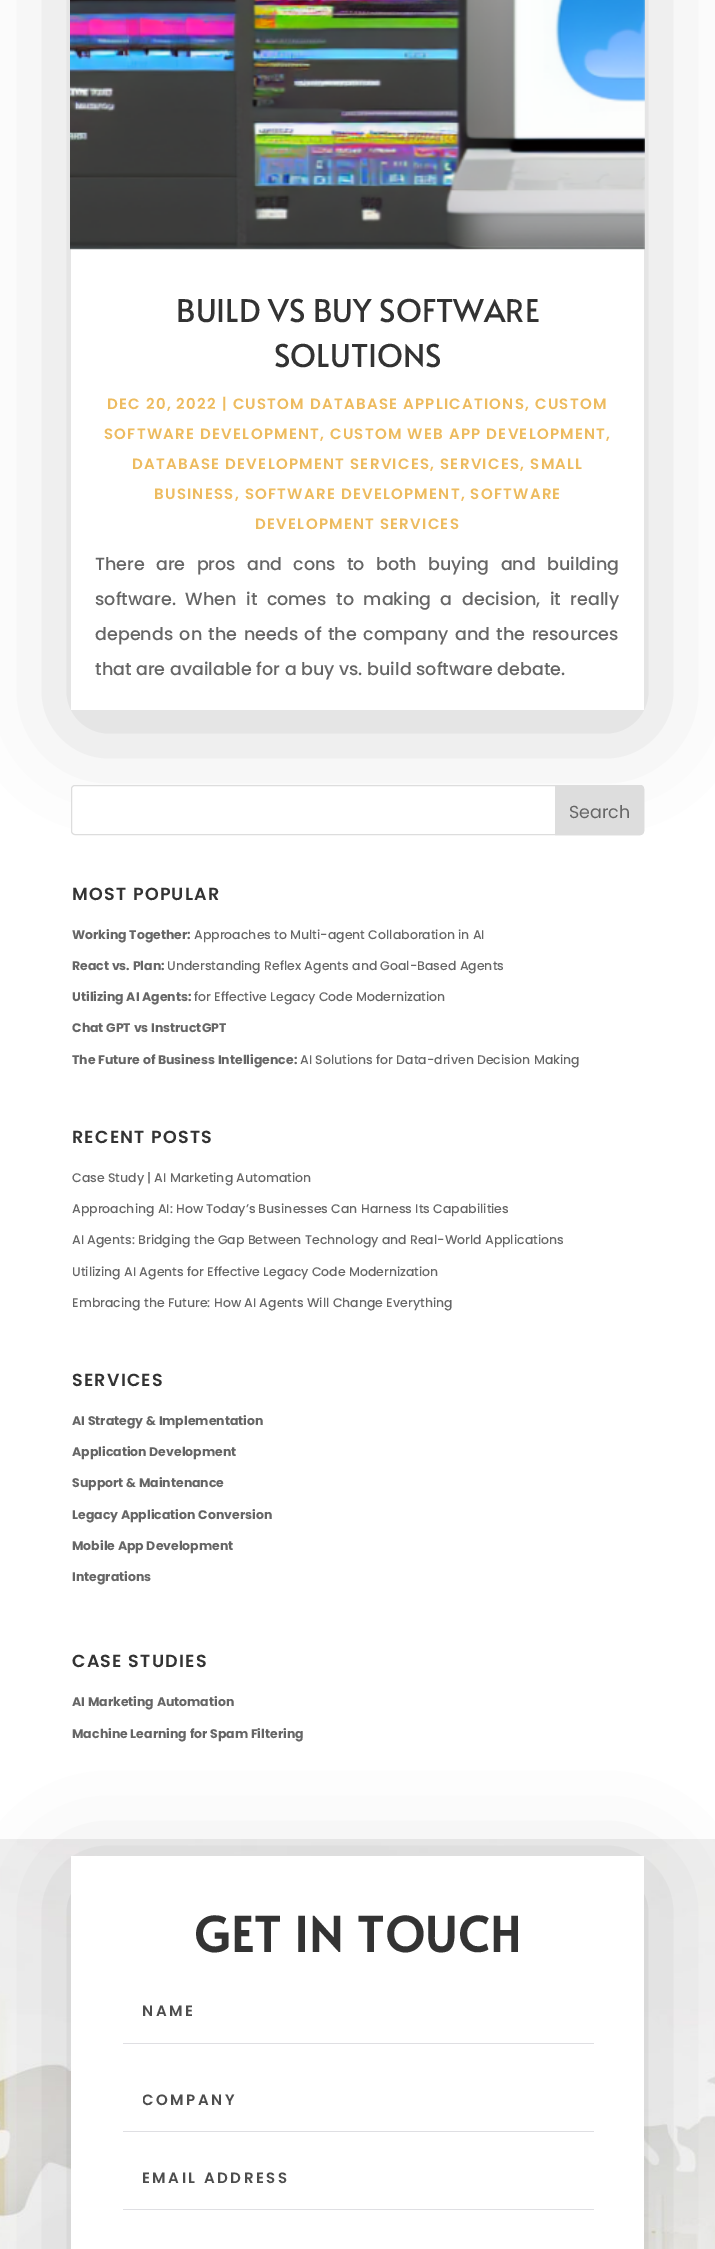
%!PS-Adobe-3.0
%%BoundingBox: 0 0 715 2249
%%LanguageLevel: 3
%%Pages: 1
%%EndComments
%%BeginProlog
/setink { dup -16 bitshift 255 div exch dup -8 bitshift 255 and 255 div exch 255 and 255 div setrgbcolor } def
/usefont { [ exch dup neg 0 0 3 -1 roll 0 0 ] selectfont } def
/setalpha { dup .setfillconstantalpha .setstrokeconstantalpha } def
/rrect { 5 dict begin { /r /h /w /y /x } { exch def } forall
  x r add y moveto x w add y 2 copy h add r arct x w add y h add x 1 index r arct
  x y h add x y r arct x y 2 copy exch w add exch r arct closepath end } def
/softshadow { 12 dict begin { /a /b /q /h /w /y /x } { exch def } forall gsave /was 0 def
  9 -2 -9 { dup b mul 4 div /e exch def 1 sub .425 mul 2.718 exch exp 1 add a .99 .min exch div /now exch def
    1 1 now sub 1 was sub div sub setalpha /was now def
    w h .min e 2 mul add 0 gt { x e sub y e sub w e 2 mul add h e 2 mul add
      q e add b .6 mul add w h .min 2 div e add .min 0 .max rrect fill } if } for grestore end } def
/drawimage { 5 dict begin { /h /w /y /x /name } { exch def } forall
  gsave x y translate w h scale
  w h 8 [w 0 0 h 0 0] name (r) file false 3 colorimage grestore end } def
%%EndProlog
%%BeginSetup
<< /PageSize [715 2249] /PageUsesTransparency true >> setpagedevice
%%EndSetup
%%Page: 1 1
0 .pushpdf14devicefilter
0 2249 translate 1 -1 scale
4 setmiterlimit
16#FFFFFF setink
0 0 715 2249 rectfill
16#000000 setink
79 -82 557 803 0 50 0.2 softshadow
16#FFFFFF setink
71 0 573 710 rectfill
(img1.raw) 70 0 575 250 drawimage
/Alata-Regular 31.25 usefont
16#333333 setink
176 322 moveto (BUILD VS BUY SOFTWARE) show
274 367 moveto (SOLUTIONS) show
/Poppins-SemiBold 15 usefont
16#EDBB5F setink
107 409 moveto 1.25 0 (DEC 20, 2022 | CUSTOM DATABASE APPLICATIONS, CUSTOM) ashow
104 439 moveto 1.25 0 (SOFTWARE DEVELOPMENT, CUSTOM WEB APP DEVELOPMENT,) ashow
132 469 moveto 1.25 0 (DATABASE DEVELOPMENT SERVICES, SERVICES, SMALL) ashow
154 499 moveto 1.25 0 (BUSINESS, SOFTWARE DEVELOPMENT, SOFTWARE) ashow
255 529 moveto 1.25 0 (DEVELOPMENT SERVICES) ashow
/Poppins-Medium 17.5 usefont
16#666666 setink
95 570 moveto 6.75 0 32 (There are pros and cons to both buying and building) widthshow
95 605 moveto 5 0 32 (software. When it comes to making a decision, it really) widthshow
95 640 moveto 2 0 32 (depends on the needs of the company and the resources) widthshow
95 675 moveto (that are available for a buy vs. build software debate.) show
16#FFFFFF setink
71.5 785.5 572 49 3.5 rrect gsave fill grestore
16#DDDDDD setink
stroke
555.5 785.5 moveto 640 785.5 lineto 642 785.5 643.5 787 643.5 789 curveto 643.5 831 lineto 643.5 833 642 834.5 640 834.5 curveto 555.5 834.5 lineto closepath gsave fill grestore
stroke
/Poppins-Regular 17.5 usefont
16#666666 setink
569 818 moveto (Search) show
/Poppins-SemiBold 17.5 usefont
16#333333 setink
72 900 moveto 1.25 0 (MOST POPULAR) ashow
/Poppins-Bold 12.5 usefont
16#666666 setink
72 939 moveto (Working Together:) show
/Poppins-Medium 12.5 usefont
194 939 moveto (Approaches to Multi-agent Collaboration in AI) show
/Poppins-Bold 12.5 usefont
72 970 moveto (React vs. Plan:) show
/Poppins-Medium 12.5 usefont
167 970 moveto (Understanding Reflex Agents and Goal-Based Agents) show
/Poppins-Bold 12.5 usefont
72 1001 moveto (Utilizing AI Agents:) show
/Poppins-Medium 12.5 usefont
194 1001 moveto (for Effective Legacy Code Modernization) show
/Poppins-Bold 12.5 usefont
72 1032 moveto (Chat GPT vs InstructGPT) show
72 1064 moveto (The Future of Business Intelligence:) show
/Poppins-Medium 12.5 usefont
300 1064 moveto (AI Solutions for Data-driven Decision Making) show
/Poppins-SemiBold 17.5 usefont
16#333333 setink
72 1143 moveto 1.25 0 (RECENT POSTS) ashow
/Poppins-Medium 12.5 usefont
16#666666 setink
[
    [(Case Study | AI Marketing Automation) 72 1182]
    [(Approaching AI: How Today’s Businesses Can Harness Its Capabilities) 72 1213]
    [(AI Agents: Bridging the Gap Between Technology and Real-World Applications) 72 1244]
    [(Utilizing AI Agents for Effective Legacy Code Modernization) 72 1276]
    [(Embracing the Future: How AI Agents Will Change Everything) 72 1307]
] { aload pop moveto show } forall
/Poppins-SemiBold 17.5 usefont
16#333333 setink
72 1386 moveto 1.25 0 (SERVICES) ashow
/Poppins-Bold 12.5 usefont
16#666666 setink
[
    [(AI Strategy & Implementation) 72 1425]
    [(Application Development) 72 1456]
    [(Support & Maintenance) 72 1487]
    [(Legacy Application Conversion) 72 1519]
    [(Mobile App Development) 72 1550]
    [(Integrations) 72 1581]
] { aload pop moveto show } forall
/Poppins-SemiBold 17.5 usefont
16#333333 setink
72 1667 moveto 1.25 0 (CASE STUDIES) ashow
/Poppins-Bold 12.5 usefont
16#666666 setink
72 1706 moveto (AI Marketing Automation) show
(img2.raw) 0 1839 715 410 drawimage
16#000000 setink
79 1883 557 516 0 50 0.2 softshadow
16#666666 setink
72 1738 moveto (Machine Learning for Spam Filtering) show
16#FFFFFF setink
71 1856 573 393 rectfill
/Alata-Bold 47.5 usefont
16#333333 setink
194 1952 moveto 1.25 0 (GET IN TOUCH) ashow
16#DFDFE3 setink
123 2043 471 1 rectfill
/Poppins-SemiBold 15 usefont
16#4D4D4D setink
142 2016 moveto 2.5 0 (NAME) ashow
16#DFDFE3 setink
123 2131 471 1 rectfill
gsave
143 2089 431 22 rectclip
16#4D4D4D setink
142 2105 moveto 2.5 0 (COMPANY) ashow
grestore
123 2209 471 1 rectfill
16#4D4D4D setink
142 2183 moveto 2.5 0 (EMAIL ADDRESS) ashow
.poppdf14devicefilter showpage
%%EOF
